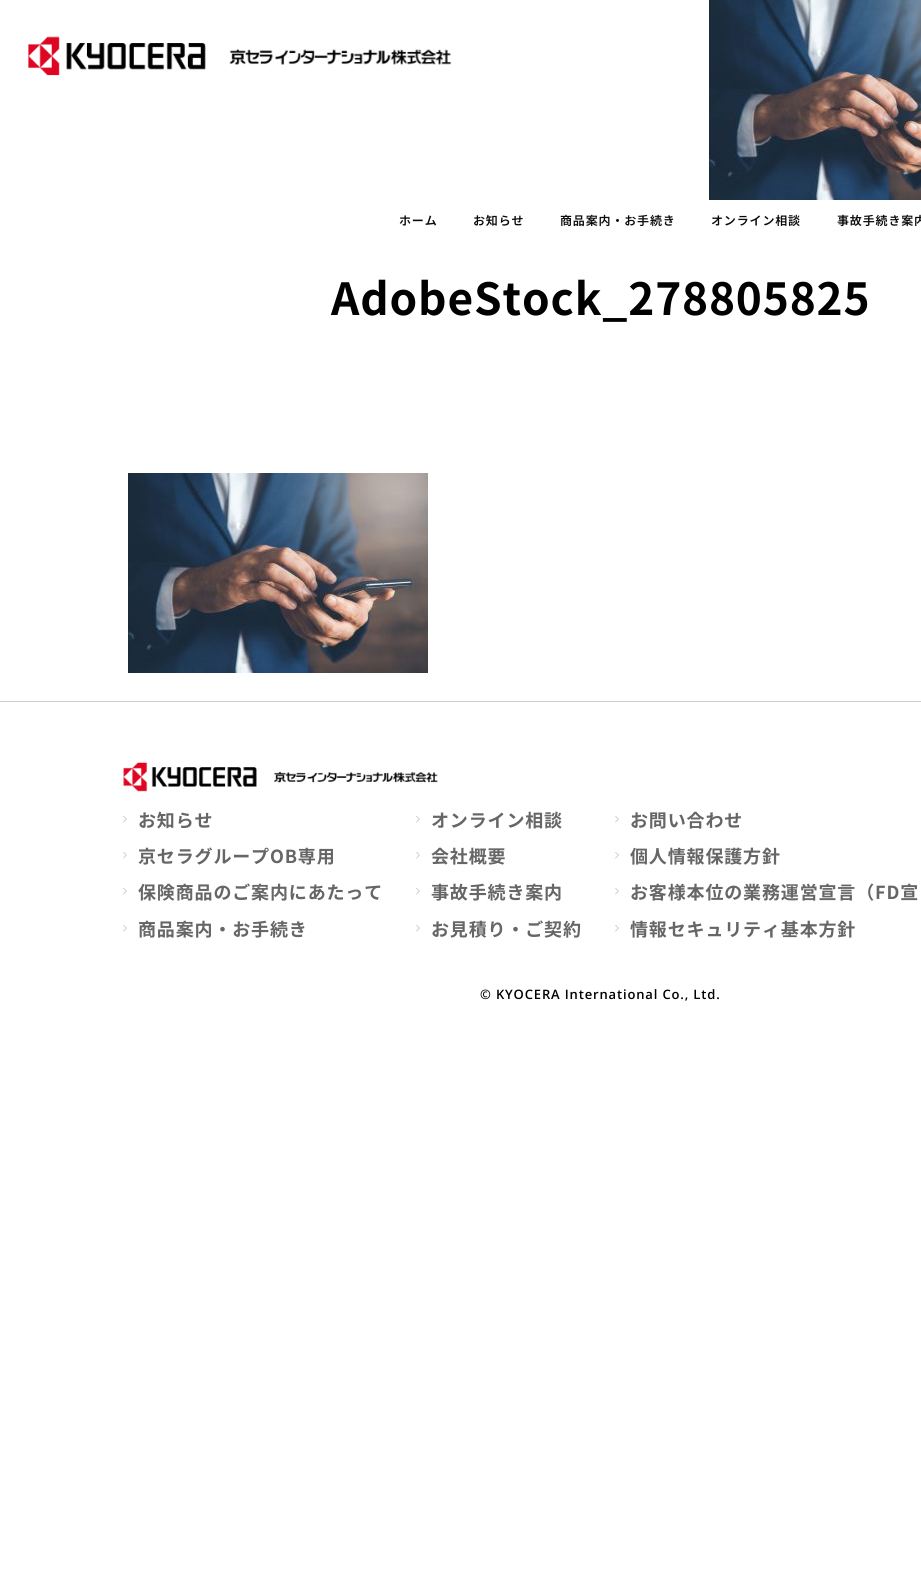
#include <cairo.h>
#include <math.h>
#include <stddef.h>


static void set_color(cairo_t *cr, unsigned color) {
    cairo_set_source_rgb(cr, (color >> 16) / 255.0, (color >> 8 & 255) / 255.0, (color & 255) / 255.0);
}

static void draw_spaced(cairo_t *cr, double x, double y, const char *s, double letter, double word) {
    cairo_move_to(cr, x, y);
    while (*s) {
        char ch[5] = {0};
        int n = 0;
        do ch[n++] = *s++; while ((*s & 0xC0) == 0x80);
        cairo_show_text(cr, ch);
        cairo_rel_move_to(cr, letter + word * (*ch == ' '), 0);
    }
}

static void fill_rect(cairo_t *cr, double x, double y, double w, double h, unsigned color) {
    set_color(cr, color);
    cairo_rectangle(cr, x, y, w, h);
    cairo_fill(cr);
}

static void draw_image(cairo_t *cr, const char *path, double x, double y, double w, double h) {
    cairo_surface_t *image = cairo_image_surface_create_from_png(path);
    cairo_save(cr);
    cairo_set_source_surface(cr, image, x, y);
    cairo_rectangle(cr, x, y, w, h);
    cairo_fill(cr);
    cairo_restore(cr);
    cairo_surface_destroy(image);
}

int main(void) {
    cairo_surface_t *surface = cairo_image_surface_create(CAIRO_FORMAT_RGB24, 921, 1581);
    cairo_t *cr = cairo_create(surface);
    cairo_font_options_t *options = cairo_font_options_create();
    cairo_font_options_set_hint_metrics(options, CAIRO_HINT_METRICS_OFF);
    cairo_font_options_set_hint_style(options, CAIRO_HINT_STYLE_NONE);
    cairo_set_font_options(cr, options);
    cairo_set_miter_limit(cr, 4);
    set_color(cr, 0xFFFFFF);
    cairo_paint(cr);
    draw_image(cr, "assets/img1.png", 28, 36, 424, 40);
    draw_image(cr, "assets/img2.png", 709, 0, 212, 200);
    cairo_select_font_face(cr, "Noto Sans JP SemiBold", CAIRO_FONT_SLANT_NORMAL, CAIRO_FONT_WEIGHT_NORMAL);
    cairo_set_font_size(cr, 12);
    set_color(cr, 0x0A0A0A);
    draw_spaced(cr, 399, 225, "ホーム", 0.85, 0);
    draw_spaced(cr, 473, 225, "お知らせ", 0.85, 0);
    draw_spaced(cr, 560, 225, "商品案内・お手続き", 0.85, 0);
    draw_spaced(cr, 711, 225, "オンライン相談", 0.85, 0);
    draw_spaced(cr, 837, 225, "事故手続き案内", 0.85, 0);
    cairo_select_font_face(cr, "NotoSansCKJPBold", CAIRO_FONT_SLANT_NORMAL, CAIRO_FONT_WEIGHT_BOLD);
    cairo_set_font_size(cr, 44.25);
    set_color(cr, 0x000000);
    draw_spaced(cr, 331, 315, "AdobeStock_278805825", 0.85, 0);
    draw_image(cr, "assets/img3.png", 128, 473, 300, 200);
    fill_rect(cr, 0, 701, 921, 1, 0xCCCCCC);
    draw_image(cr, "assets/img4.png", 123, 762, 315, 30);
    draw_image(cr, "assets/img5.png", 123, 816, 4, 7);
    cairo_select_font_face(cr, "Noto Sans JP", CAIRO_FONT_SLANT_NORMAL, CAIRO_FONT_WEIGHT_BOLD);
    cairo_set_font_size(cr, 18);
    set_color(cr, 0x666666);
    draw_spaced(cr, 138, 827, "お知らせ", 0.85, 0);
    draw_image(cr, "assets/img5.png", 416, 816, 4, 7);
    draw_spaced(cr, 431, 827, "オンライン相談", 0.85, 0);
    draw_image(cr, "assets/img5.png", 615, 816, 4, 7);
    draw_spaced(cr, 630, 827, "お問い合わせ", 0.85, 0);
    draw_image(cr, "assets/img5.png", 123, 852, 4, 7);
    draw_spaced(cr, 138, 863, "京セラグループOB専用", 0.85, 0);
    draw_image(cr, "assets/img5.png", 416, 852, 4, 7);
    draw_spaced(cr, 431, 863, "会社概要", 0.85, 0);
    draw_image(cr, "assets/img5.png", 615, 852, 4, 7);
    draw_spaced(cr, 630, 863, "個人情報保護方針", 0.85, 0);
    draw_image(cr, "assets/img5.png", 123, 888, 4, 7);
    draw_spaced(cr, 138, 899, "保険商品のご案内にあたって", 0.85, 0);
    draw_image(cr, "assets/img5.png", 416, 888, 4, 7);
    draw_spaced(cr, 431, 899, "事故手続き案内", 0.85, 0);
    draw_image(cr, "assets/img5.png", 615, 888, 4, 7);
    draw_spaced(cr, 630, 899, "お客様本位の業務運営宣言（FD宣", 0.85, 0);
    draw_image(cr, "assets/img5.png", 123, 925, 4, 7);
    draw_spaced(cr, 138, 936, "商品案内・お手続き", 0.85, 0);
    draw_image(cr, "assets/img5.png", 416, 925, 4, 7);
    draw_spaced(cr, 431, 936, "お見積り・ご契約", 0.85, 0);
    draw_image(cr, "assets/img5.png", 615, 925, 4, 7);
    draw_spaced(cr, 630, 936, "情報セキュリティ基本方針", 0.85, 0);
    cairo_select_font_face(cr, "Open Sans SemiBold", CAIRO_FONT_SLANT_NORMAL, CAIRO_FONT_WEIGHT_NORMAL);
    cairo_set_font_size(cr, 13);
    set_color(cr, 0x000000);
    draw_spaced(cr, 480, 999, "© KYOCERA International Co., Ltd.", 0.85, 0);
    cairo_surface_write_to_png(surface, "output.png");
    cairo_font_options_destroy(options);
    cairo_destroy(cr);
    cairo_surface_destroy(surface);
    return 0;
}
